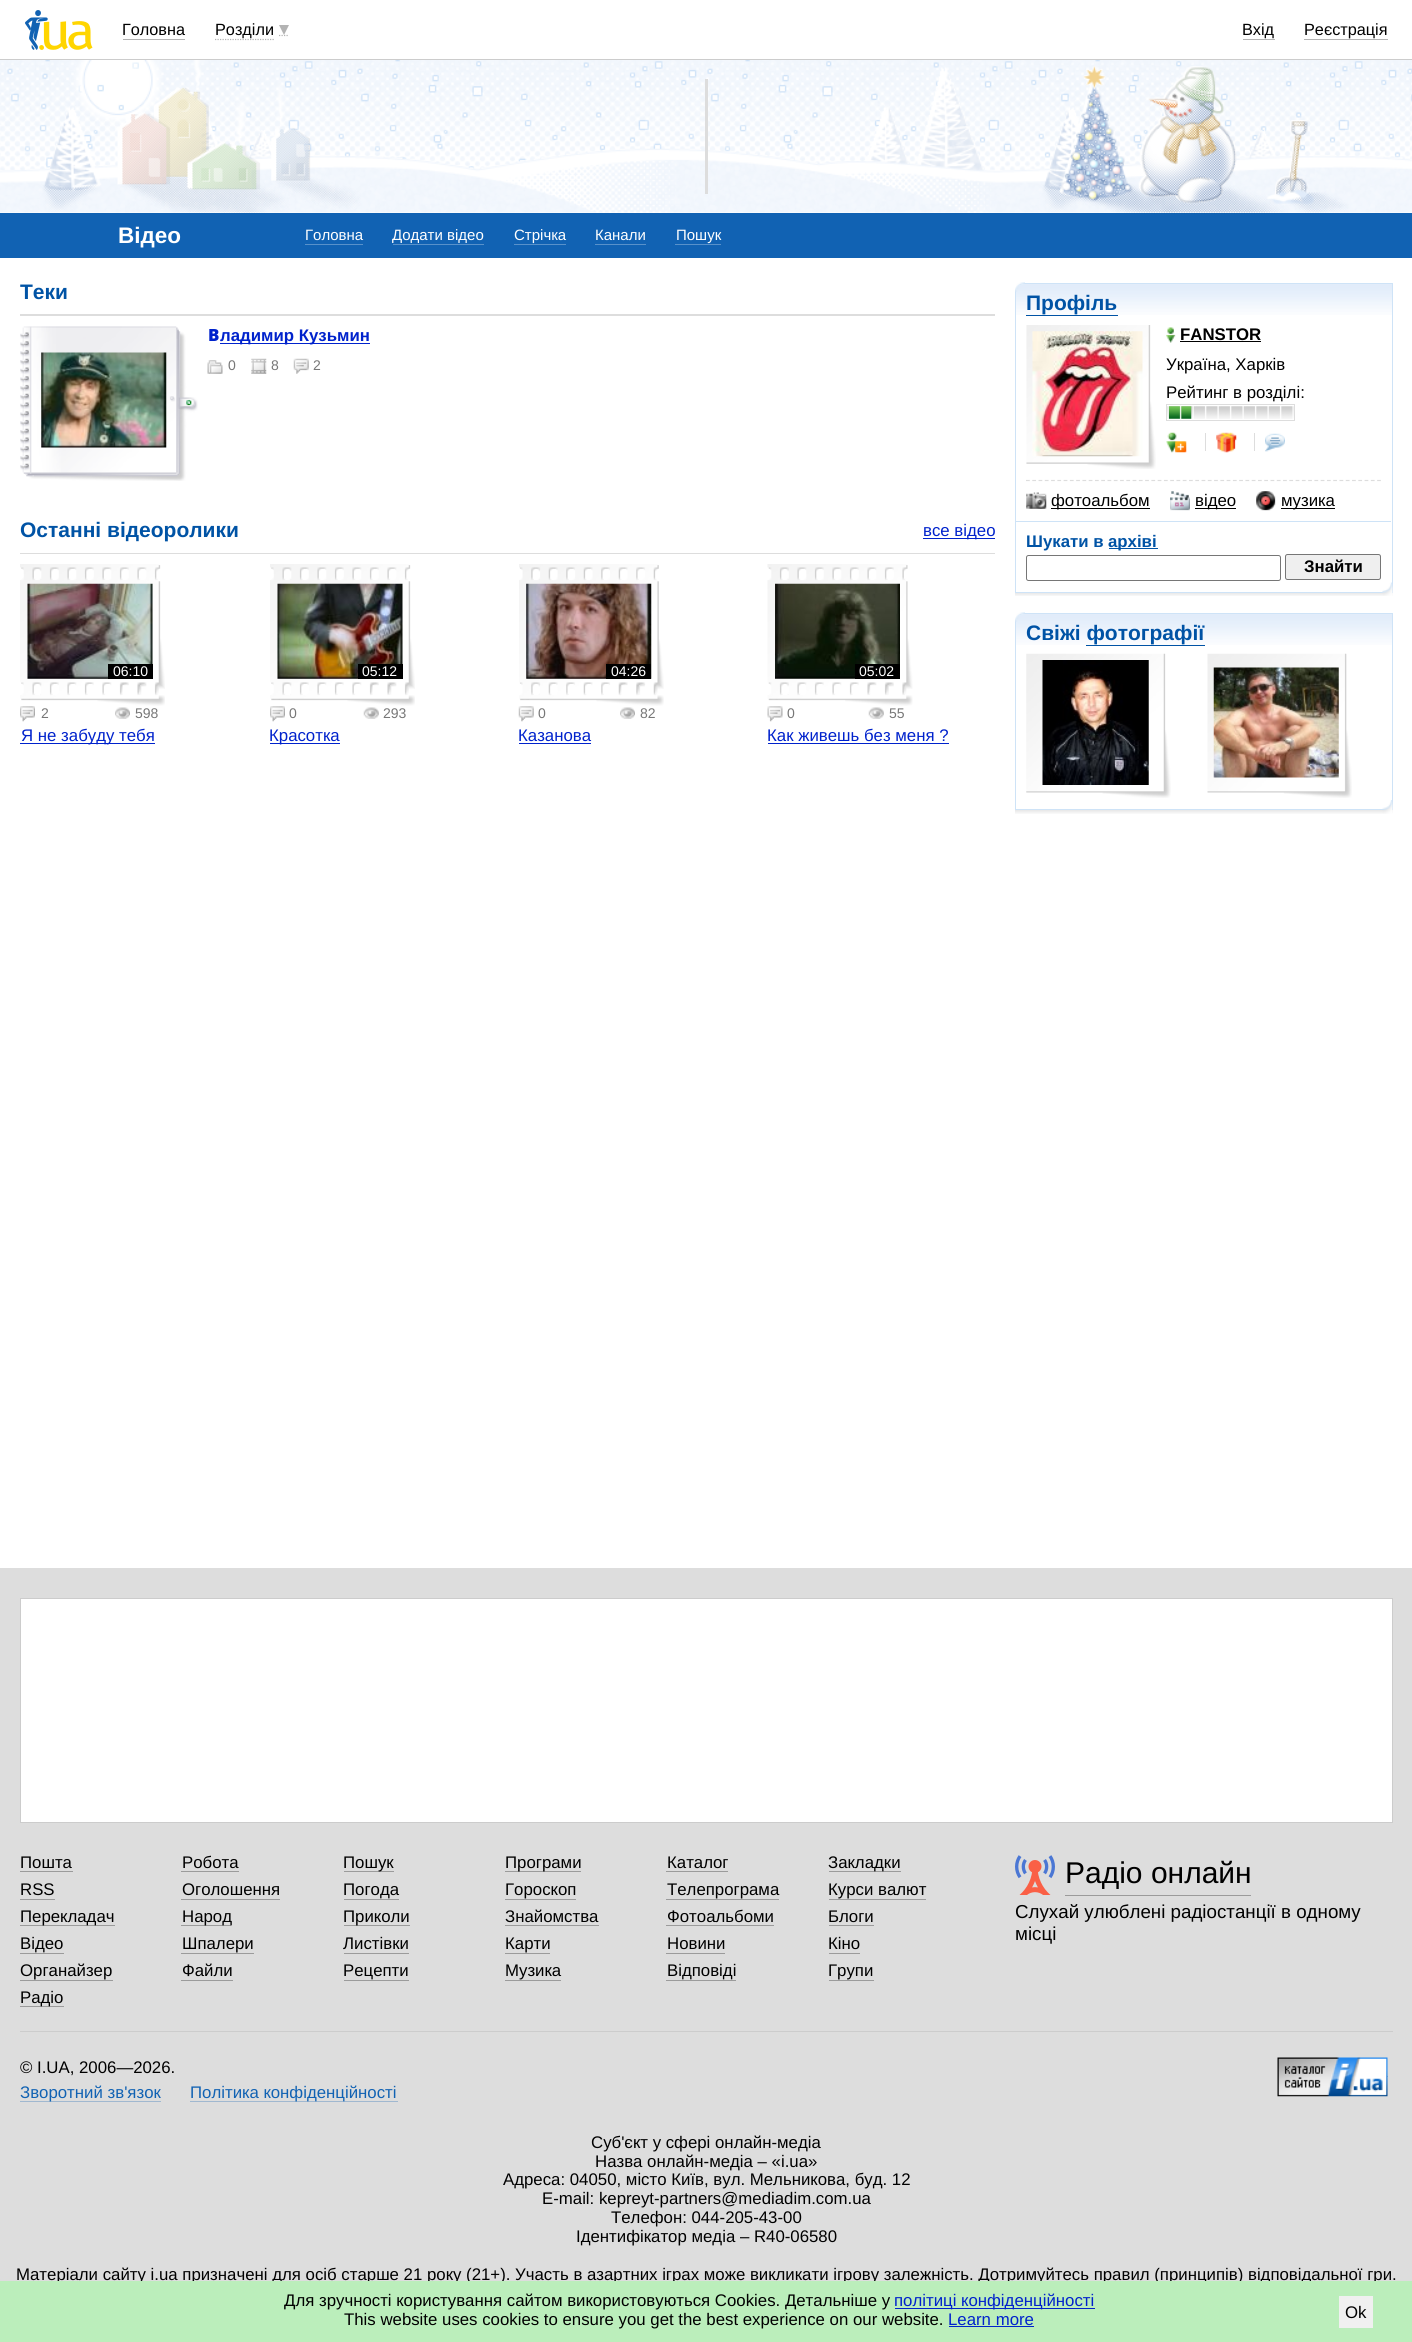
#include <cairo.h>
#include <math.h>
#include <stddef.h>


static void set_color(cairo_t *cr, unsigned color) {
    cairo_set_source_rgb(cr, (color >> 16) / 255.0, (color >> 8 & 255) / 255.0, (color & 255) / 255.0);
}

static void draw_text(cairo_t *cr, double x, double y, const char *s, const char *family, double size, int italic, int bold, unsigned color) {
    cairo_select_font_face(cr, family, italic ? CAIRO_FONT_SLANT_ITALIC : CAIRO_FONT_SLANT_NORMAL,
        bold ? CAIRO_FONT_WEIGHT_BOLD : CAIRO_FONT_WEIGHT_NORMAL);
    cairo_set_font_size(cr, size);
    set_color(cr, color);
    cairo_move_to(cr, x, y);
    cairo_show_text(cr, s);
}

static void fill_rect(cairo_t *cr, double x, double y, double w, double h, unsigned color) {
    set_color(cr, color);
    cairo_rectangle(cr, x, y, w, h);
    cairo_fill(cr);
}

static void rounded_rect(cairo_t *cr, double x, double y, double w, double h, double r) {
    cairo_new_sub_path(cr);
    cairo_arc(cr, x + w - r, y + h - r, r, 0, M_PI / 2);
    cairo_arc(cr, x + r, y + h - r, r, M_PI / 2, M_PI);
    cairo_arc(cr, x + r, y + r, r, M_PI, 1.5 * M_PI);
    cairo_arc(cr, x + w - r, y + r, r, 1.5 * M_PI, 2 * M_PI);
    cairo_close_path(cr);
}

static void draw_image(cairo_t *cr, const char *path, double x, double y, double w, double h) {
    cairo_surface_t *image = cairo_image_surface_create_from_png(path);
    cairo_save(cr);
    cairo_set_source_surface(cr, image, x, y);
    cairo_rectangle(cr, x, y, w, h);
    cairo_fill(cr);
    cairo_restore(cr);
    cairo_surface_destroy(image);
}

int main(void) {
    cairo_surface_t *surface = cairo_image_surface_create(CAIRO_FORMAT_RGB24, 1412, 2342);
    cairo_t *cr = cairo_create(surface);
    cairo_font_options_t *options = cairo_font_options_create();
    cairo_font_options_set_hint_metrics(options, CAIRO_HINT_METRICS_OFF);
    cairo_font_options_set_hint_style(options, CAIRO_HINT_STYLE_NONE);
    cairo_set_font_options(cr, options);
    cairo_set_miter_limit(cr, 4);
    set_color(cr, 0xFFFFFF);
    cairo_paint(cr);
    fill_rect(cr, 0, 59, 1412, 1, 0xCCCCCC);
    draw_image(cr, "assets/img1.png", 25, 10, 68, 40);
    draw_text(cr, 122, 35, "Головна", "Liberation Sans", 16.25, 0, 0, 0x000000);
    fill_rect(cr, 123, 39, 62, 1, 0xB3B3B3);
    cairo_new_path(cr);
    cairo_move_to(cr, 215, 39.5);
    cairo_line_to(cr, 274, 39.5);
    cairo_set_line_width(cr, 1.2);
    cairo_set_dash(cr, (double[]){1.25, 1.25}, 2, 0);
    cairo_stroke(cr);
    cairo_new_path(cr);
    cairo_move_to(cr, 279, 35.5);
    cairo_line_to(cr, 289, 35.5);
    cairo_stroke(cr);
    draw_text(cr, 215, 35, "Розділи", "Liberation Sans", 16.25, 0, 0, 0x000000);
    set_color(cr, 0xB3B3B3);
    cairo_new_path(cr);
    cairo_move_to(cr, 279, 25);
    cairo_line_to(cr, 289, 25);
    cairo_line_to(cr, 284, 35);
    cairo_close_path(cr);
    cairo_fill(cr);
    draw_text(cr, 1242, 35, "Вхід", "Liberation Sans", 16.25, 0, 0, 0x000000);
    fill_rect(cr, 1243, 39, 32, 1, 0xB3B3B3);
    draw_text(cr, 1304, 35, "Реєстрація", "Liberation Sans", 16.25, 0, 0, 0x000000);
    fill_rect(cr, 1304, 39, 84, 1, 0xB3B3B3);
    draw_image(cr, "assets/img2.png", 0, 60, 1412, 153);
    fill_rect(cr, 705, 79, 3, 115, 0xDDDDDD);
    fill_rect(cr, 0, 213, 1412, 45, 0x1162B3);
    draw_text(cr, 118, 243, "Відео", "Liberation Sans", 22.5, 0, 1, 0xFFFFFF);
    draw_text(cr, 305, 240, "Головна", "Liberation Sans", 15, 0, 0, 0xFFFFFF);
    fill_rect(cr, 305, 244, 58, 1, 0x5891CA);
    draw_text(cr, 392, 240, "Додати відео", "Liberation Sans", 15, 0, 0, 0xFFFFFF);
    fill_rect(cr, 393, 244, 91, 1, 0x5891CA);
    draw_text(cr, 514, 240, "Стрічка", "Liberation Sans", 15, 0, 0, 0xFFFFFF);
    fill_rect(cr, 514, 244, 52, 1, 0x5891CA);
    draw_text(cr, 595, 240, "Канали", "Liberation Sans", 15, 0, 0, 0xFFFFFF);
    fill_rect(cr, 595, 244, 51, 1, 0x5891CA);
    draw_text(cr, 676, 240, "Пошук", "Liberation Sans", 15, 0, 0, 0xFFFFFF);
    fill_rect(cr, 675, 244, 46, 1, 0x5891CA);
    fill_rect(cr, 20, 314, 975, 2, 0xDDDDDD);
    draw_text(cr, 20, 299, "Теки", "Liberation Sans", 21, 0, 1, 0x0053A5);
    draw_image(cr, "assets/img3.png", 20, 326, 178, 155);
    draw_image(cr, "assets/img4.png", 41, 352, 126, 96);
    draw_text(cr, 208, 341, "В", "Noto Sans Black", 16.8, 0, 0, 0x0022CC);
    fill_rect(cr, 220, 343, 150, 1, 0x0022CC);
    draw_text(cr, 220, 341, "ладимир Кузьмин", "Liberation Sans", 16.8, 0, 1, 0x0022CC);
    draw_image(cr, "assets/img5.png", 207, 360, 16, 14);
    draw_text(cr, 228, 370, "0", "Liberation Sans", 14, 0, 0, 0x777777);
    draw_image(cr, "assets/img6.png", 251, 358, 16, 16);
    draw_text(cr, 271, 370, "8", "Liberation Sans", 14, 0, 0, 0x777777);
    draw_image(cr, "assets/img7.png", 293, 358, 16, 16);
    draw_text(cr, 313, 370, "2", "Liberation Sans", 14, 0, 0, 0x777777);
    fill_rect(cr, 20, 553, 975, 1, 0xDDDDDD);
    draw_text(cr, 20, 537, "Останні відеоролики", "Liberation Sans", 21, 0, 1, 0x0053A5);
    fill_rect(cr, 923, 538, 72, 1, 0x0022CC);
    draw_text(cr, 923, 536, "все відео", "Liberation Sans", 16.8, 0, 0, 0x0022CC);
    draw_image(cr, "assets/img8.png", 20, 564, 145, 142);
    draw_image(cr, "assets/img9.png", 27, 583, 126, 96);
    fill_rect(cr, 108, 664, 45, 15, 0x000000);
    draw_text(cr, 113, 676, "06:10", "Liberation Sans", 14, 0, 0, 0xFFFFFF);
    draw_image(cr, "assets/img10.png", 20, 706, 15, 16);
    draw_text(cr, 41, 718, "2", "Liberation Sans", 14, 0, 0, 0x777777);
    draw_image(cr, "assets/img11.png", 115, 707, 15, 12);
    draw_text(cr, 135, 718, "598", "Liberation Sans", 14, 0, 0, 0x777777);
    fill_rect(cr, 20, 743, 135, 1, 0x0022CC);
    draw_text(cr, 21, 741, "Я не забуду тебя", "Liberation Sans", 16.8, 0, 0, 0x0022CC);
    draw_image(cr, "assets/img8.png", 270, 564, 145, 142);
    draw_image(cr, "assets/img12.png", 277, 583, 126, 96);
    fill_rect(cr, 358, 664, 45, 15, 0x000000);
    draw_text(cr, 362, 676, "05:12", "Liberation Sans", 14, 0, 0, 0xFFFFFF);
    draw_image(cr, "assets/img10.png", 270, 706, 15, 16);
    draw_text(cr, 289, 718, "0", "Liberation Sans", 14, 0, 0, 0x777777);
    draw_image(cr, "assets/img13.png", 363, 707, 16, 12);
    draw_text(cr, 383, 718, "293", "Liberation Sans", 14, 0, 0, 0x777777);
    fill_rect(cr, 270, 743, 70, 1, 0x0022CC);
    draw_text(cr, 269, 741, "Красотка", "Liberation Sans", 16.8, 0, 0, 0x0022CC);
    draw_image(cr, "assets/img14.png", 519, 564, 145, 142);
    draw_image(cr, "assets/img15.png", 526, 583, 126, 96);
    fill_rect(cr, 606, 664, 45, 15, 0x000000);
    draw_text(cr, 611, 676, "04:26", "Liberation Sans", 14, 0, 0, 0xFFFFFF);
    draw_image(cr, "assets/img16.png", 518, 706, 16, 16);
    draw_text(cr, 538, 718, "0", "Liberation Sans", 14, 0, 0, 0x777777);
    draw_image(cr, "assets/img11.png", 620, 707, 15, 12);
    draw_text(cr, 640, 718, "82", "Liberation Sans", 14, 0, 0, 0x777777);
    draw_text(cr, 518, 741, "Казанова", "Liberation Sans", 16.8, 0, 0, 0x0022CC);
    fill_rect(cr, 519, 743, 72, 1, 0x0022CC);
    draw_image(cr, "assets/img17.png", 767, 564, 146, 142);
    draw_image(cr, "assets/img18.png", 775, 583, 125, 96);
    fill_rect(cr, 855, 664, 45, 15, 0x000000);
    draw_text(cr, 859, 676, "05:02", "Liberation Sans", 14, 0, 0, 0xFFFFFF);
    draw_image(cr, "assets/img19.png", 767, 706, 16, 16);
    draw_text(cr, 787, 718, "0", "Liberation Sans", 14, 0, 0, 0x777777);
    draw_image(cr, "assets/img13.png", 868, 707, 16, 12);
    draw_text(cr, 889, 718, "55", "Liberation Sans", 14, 0, 0, 0x777777);
    draw_text(cr, 767, 741, "Как живешь без меня ?", "Liberation Sans", 16.8, 0, 0, 0x0022CC);
    fill_rect(cr, 768, 743, 181, 1, 0x0022CC);
    draw_image(cr, "assets/img20.png", 1015, 593, 378, 3);
    draw_image(cr, "assets/img22.png", 1016, 284, 376, 31);
    cairo_rectangle(cr, 1015.5, 283.5, 377, 309);
    set_color(cr, 0xCEE3F7);
    cairo_set_line_width(cr, 1);
    cairo_set_dash(cr, NULL, 0, 0);
    cairo_stroke(cr);
    draw_image(cr, "assets/img21.png", 1015, 282, 10, 10);
    draw_text(cr, 1026, 310, "Профіль", "Liberation Sans", 21, 0, 1, 0x0053A5);
    fill_rect(cr, 1026, 315, 92, 1, 0x0053A5);
    draw_image(cr, "assets/img23.png", 1026, 325, 130, 144);
    draw_image(cr, "assets/img24.png", 1032, 331, 111, 126);
    draw_image(cr, "assets/img25.png", 1166, 327, 10, 16);
    draw_text(cr, 1180, 340, "FANSTOR", "Liberation Sans", 16.8, 0, 1, 0x000000);
    fill_rect(cr, 1180, 341, 81, 1, 0x000000);
    draw_text(cr, 1166, 370, "Україна, Харків", "Liberation Sans", 16.8, 0, 0, 0x000000);
    draw_text(cr, 1166, 398, "Рейтинг в розділі:", "Liberation Sans", 16.8, 0, 0, 0x000000);
    draw_image(cr, "assets/img26.png", 1167, 406, 127, 13);
    cairo_rectangle(cr, 1166.5, 404.5, 128, 16);
    set_color(cr, 0xDDDDDD);
    cairo_stroke(cr);
    draw_image(cr, "assets/img27.png", 1168, 406, 24, 13);
    draw_image(cr, "assets/img28.png", 1166, 432, 21, 21);
    fill_rect(cr, 1205, 433, 1, 18, 0xDDDDDD);
    draw_image(cr, "assets/img29.png", 1216, 432, 21, 21);
    fill_rect(cr, 1254, 433, 1, 18, 0xDDDDDD);
    draw_image(cr, "assets/img30.png", 1265, 433, 20, 19);
    cairo_new_path(cr);
    cairo_move_to(cr, 1026, 480.5);
    cairo_line_to(cr, 1381, 480.5);
    cairo_set_line_width(cr, 1.2);
    cairo_set_dash(cr, (double[]){3.75, 2.52}, 2, 0);
    cairo_stroke(cr);
    draw_image(cr, "assets/img31.png", 1026, 492, 21, 17);
    fill_rect(cr, 1051, 508, 99, 1, 0x000000);
    draw_text(cr, 1051, 506, "фотоальбом", "Liberation Sans", 16.8, 0, 0, 0x000000);
    draw_image(cr, "assets/img32.png", 1170, 491, 20, 20);
    fill_rect(cr, 1195, 508, 41, 1, 0x000000);
    draw_text(cr, 1195, 506, "відео", "Liberation Sans", 16.8, 0, 0, 0x000000);
    draw_image(cr, "assets/img33.png", 1256, 491, 20, 20);
    fill_rect(cr, 1281, 508, 54, 1, 0x000000);
    draw_text(cr, 1281, 506, "музика", "Liberation Sans", 16.8, 0, 0, 0x000000);
    fill_rect(cr, 1016, 521, 375, 1, 0xCEE3F7);
    draw_text(cr, 1026, 547, "Шукати в", "Liberation Sans", 16.8, 0, 1, 0x0053A5);
    fill_rect(cr, 1109, 548, 49, 1, 0x0053A5);
    draw_text(cr, 1108, 547, "архіві", "Liberation Sans", 16.8, 0, 1, 0x0053A5);
    rounded_rect(cr, 1026.5, 555.5, 254, 25, 2);
    set_color(cr, 0x767676);
    cairo_set_line_width(cr, 1);
    cairo_set_dash(cr, NULL, 0, 0);
    cairo_stroke(cr);
    set_color(cr, 0xEFEFEF);
    rounded_rect(cr, 1285.5, 554.5, 95, 25, 2);
    cairo_fill_preserve(cr);
    set_color(cr, 0x767676);
    cairo_stroke(cr);
    draw_text(cr, 1304, 572, "Знайти", "Liberation Sans", 16.8, 0, 1, 0x000000);
    draw_image(cr, "assets/img34.png", 1382, 582, 11, 14);
    draw_image(cr, "assets/img35.png", 1015, 810, 378, 4);
    draw_image(cr, "assets/img36.png", 1016, 614, 376, 31);
    cairo_rectangle(cr, 1015.5, 613.5, 377, 196);
    set_color(cr, 0xCEE3F7);
    cairo_stroke(cr);
    draw_image(cr, "assets/img21.png", 1015, 612, 10, 10);
    draw_text(cr, 1026, 640, "Свіжі фотографії", "Liberation Sans", 21, 0, 1, 0x0053A5);
    fill_rect(cr, 1086, 645, 119, 1, 0x0053A5);
    draw_image(cr, "assets/img37.png", 1026, 653, 145, 145);
    draw_image(cr, "assets/img38.png", 1042, 660, 107, 125);
    draw_image(cr, "assets/img39.png", 1207, 653, 145, 145);
    draw_image(cr, "assets/img40.png", 1213, 667, 126, 111);
    draw_image(cr, "assets/img41.png", 1382, 800, 11, 14);
    fill_rect(cr, 0, 1568, 1412, 713, 0xDDDDDD);
    set_color(cr, 0xFFFFFF);
    cairo_rectangle(cr, 20.5, 1598.5, 1372, 224);
    cairo_fill_preserve(cr);
    set_color(cr, 0xCCCCCC);
    cairo_stroke(cr);
    draw_text(cr, 20, 1868, "Пошта", "Liberation Sans", 16.8, 0, 0, 0x000000);
    fill_rect(cr, 20, 1871, 53, 1, 0x9B9B9B);
    draw_text(cr, 182, 1868, "Робота", "Liberation Sans", 16.8, 0, 0, 0x000000);
    fill_rect(cr, 181, 1871, 58, 1, 0x9B9B9B);
    fill_rect(cr, 344, 1871, 50, 1, 0x9B9B9B);
    draw_text(cr, 343, 1868, "Пошук", "Liberation Sans", 16.8, 0, 0, 0x000000);
    fill_rect(cr, 505, 1871, 76, 1, 0x9B9B9B);
    draw_text(cr, 505, 1868, "Програми", "Liberation Sans", 16.8, 0, 0, 0x000000);
    draw_text(cr, 667, 1868, "Каталог", "Liberation Sans", 16.8, 0, 0, 0x000000);
    fill_rect(cr, 666, 1871, 62, 1, 0x9B9B9B);
    fill_rect(cr, 829, 1871, 72, 1, 0x9B9B9B);
    draw_text(cr, 828, 1868, "Закладки", "Liberation Sans", 16.8, 0, 0, 0x000000);
    draw_text(cr, 20, 1895, "RSS", "Liberation Sans", 16.8, 0, 0, 0x000000);
    fill_rect(cr, 20, 1899, 35, 1, 0x9B9B9B);
    draw_text(cr, 182, 1895, "Оголошення", "Liberation Sans", 16.8, 0, 0, 0x000000);
    fill_rect(cr, 181, 1899, 99, 1, 0x9B9B9B);
    draw_text(cr, 343, 1895, "Погода", "Liberation Sans", 16.8, 0, 0, 0x000000);
    fill_rect(cr, 344, 1899, 55, 1, 0x9B9B9B);
    draw_text(cr, 505, 1895, "Гороскоп", "Liberation Sans", 16.8, 0, 0, 0x000000);
    fill_rect(cr, 505, 1899, 71, 1, 0x9B9B9B);
    draw_text(cr, 667, 1895, "Телепрограма", "Liberation Sans", 16.8, 0, 0, 0x000000);
    fill_rect(cr, 666, 1899, 113, 1, 0x9B9B9B);
    draw_text(cr, 828, 1895, "Курси валют", "Liberation Sans", 16.8, 0, 0, 0x000000);
    fill_rect(cr, 829, 1899, 97, 1, 0x9B9B9B);
    fill_rect(cr, 20, 1925, 95, 1, 0x9B9B9B);
    draw_text(cr, 20, 1922, "Перекладач", "Liberation Sans", 16.8, 0, 0, 0x000000);
    fill_rect(cr, 181, 1925, 50, 1, 0x9B9B9B);
    draw_text(cr, 182, 1922, "Народ", "Liberation Sans", 16.8, 0, 0, 0x000000);
    fill_rect(cr, 344, 1925, 66, 1, 0x9B9B9B);
    draw_text(cr, 343, 1922, "Приколи", "Liberation Sans", 16.8, 0, 0, 0x000000);
    draw_text(cr, 505, 1922, "Знайомства", "Liberation Sans", 16.8, 0, 0, 0x000000);
    fill_rect(cr, 505, 1925, 94, 1, 0x9B9B9B);
    draw_text(cr, 667, 1922, "Фотоальбоми", "Liberation Sans", 16.8, 0, 0, 0x000000);
    fill_rect(cr, 666, 1925, 108, 1, 0x9B9B9B);
    draw_text(cr, 828, 1922, "Блоги", "Liberation Sans", 16.8, 0, 0, 0x000000);
    fill_rect(cr, 829, 1925, 45, 1, 0x9B9B9B);
    draw_text(cr, 20, 1949, "Відео", "Liberation Sans", 16.8, 0, 0, 0x000000);
    fill_rect(cr, 20, 1953, 44, 1, 0x9B9B9B);
    draw_text(cr, 182, 1949, "Шпалери", "Liberation Sans", 16.8, 0, 0, 0x000000);
    fill_rect(cr, 181, 1953, 73, 1, 0x9B9B9B);
    draw_text(cr, 343, 1949, "Листівки", "Liberation Sans", 16.8, 0, 0, 0x000000);
    fill_rect(cr, 344, 1953, 65, 1, 0x9B9B9B);
    draw_text(cr, 505, 1949, "Карти", "Liberation Sans", 16.8, 0, 0, 0x000000);
    fill_rect(cr, 505, 1953, 45, 1, 0x9B9B9B);
    draw_text(cr, 667, 1949, "Новини", "Liberation Sans", 16.8, 0, 0, 0x000000);
    fill_rect(cr, 666, 1953, 59, 1, 0x9B9B9B);
    draw_text(cr, 828, 1949, "Кіно", "Liberation Sans", 16.8, 0, 0, 0x000000);
    fill_rect(cr, 829, 1953, 31, 1, 0x9B9B9B);
    draw_text(cr, 20, 1976, "Органайзер", "Liberation Sans", 16.8, 0, 0, 0x000000);
    fill_rect(cr, 20, 1980, 93, 1, 0x9B9B9B);
    draw_text(cr, 182, 1976, "Файли", "Liberation Sans", 16.8, 0, 0, 0x000000);
    fill_rect(cr, 181, 1980, 52, 1, 0x9B9B9B);
    draw_text(cr, 343, 1976, "Рецепти", "Liberation Sans", 16.8, 0, 0, 0x000000);
    fill_rect(cr, 344, 1980, 65, 1, 0x9B9B9B);
    draw_text(cr, 505, 1976, "Музика", "Liberation Sans", 16.8, 0, 0, 0x000000);
    fill_rect(cr, 505, 1980, 56, 1, 0x9B9B9B);
    draw_text(cr, 667, 1976, "Відповіді", "Liberation Sans", 16.8, 0, 0, 0x000000);
    fill_rect(cr, 666, 1980, 70, 1, 0x9B9B9B);
    draw_text(cr, 828, 1976, "Групи", "Liberation Sans", 16.8, 0, 0, 0x000000);
    fill_rect(cr, 829, 1980, 45, 1, 0x9B9B9B);
    fill_rect(cr, 20, 2006, 44, 1, 0x9B9B9B);
    draw_text(cr, 20, 2003, "Радіо", "Liberation Sans", 16.8, 0, 0, 0x000000);
    fill_rect(cr, 1065, 1895, 186, 1, 0x9B9B9B);
    draw_image(cr, "assets/img42.png", 1015, 1855, 40, 40);
    draw_text(cr, 1065, 1883, "Радіо онлайн", "Liberation Sans", 30, 0, 0, 0x000000);
    draw_text(cr, 1015, 1918, "Слухай улюблені радіостанції в одному", "Liberation Sans", 18.75, 0, 0, 0x000000);
    draw_text(cr, 1015, 1940, "місці", "Liberation Sans", 18.75, 0, 0, 0x000000);
    fill_rect(cr, 20, 2031, 1373, 1, 0xCCCCCC);
    draw_text(cr, 20, 2073, "©", "Liberation Sans", 16.8, 0, 0, 0x000000);
    draw_text(cr, 37, 2073, "I.UA, 2006—2026.", "Liberation Sans", 16.8, 0, 0, 0x000000);
    fill_rect(cr, 1387, 2076, 1, 1, 0xA0B8D0);
    draw_image(cr, "assets/img43.png", 1277, 2057, 111, 40);
    fill_rect(cr, 20, 2101, 141, 1, 0xA0B8D0);
    draw_text(cr, 20, 2098, "Зворотний зв'язок", "Liberation Sans", 16.8, 0, 0, 0x1162B3);
    fill_rect(cr, 190, 2101, 208, 1, 0xA0B8D0);
    draw_text(cr, 190, 2098, "Політика конфіденційності", "Liberation Sans", 16.8, 0, 0, 0x1162B3);
    draw_text(cr, 591, 2148, "Суб'єкт у сфері онлайн-медіа", "Liberation Sans", 16.8, 0, 0, 0x000000);
    draw_text(cr, 595, 2167, "Назва онлайн-медіа – «i.ua»", "Liberation Sans", 16.8, 0, 0, 0x000000);
    draw_text(cr, 503, 2185, "Адреса: 04050, місто Київ, вул. Мельникова, буд. 12", "Liberation Sans", 16.8, 0, 0, 0x000000);
    draw_text(cr, 542, 2204, "E-mail: kepreyt-partners@mediadim.com.ua", "Liberation Sans", 16.8, 0, 0, 0x000000);
    draw_text(cr, 611, 2223, "Телефон: 044-205-43-00", "Liberation Sans", 16.8, 0, 0, 0x000000);
    draw_text(cr, 576, 2242, "Ідентифікатор медіа – R40-06580", "Liberation Sans", 16.8, 0, 0, 0x000000);
    draw_text(cr, 16, 2280, "Матеріали сайту i.ua призначені для осіб старше 21 року (21+). Участь в азартних іграх може викликати ігрову залежність. Дотримуйтесь правил (принципів) відповідальної гри.", "Liberation Sans", 16.8, 0, 0, 0x000000);
    fill_rect(cr, 0, 2281, 1412, 61, 0xBBEEBB);
    draw_text(cr, 284, 2306, "Для зручності користування сайтом використовуються Cookies. Детальніше у", "Liberation Sans", 16.8, 0, 0, 0x000000);
    fill_rect(cr, 895, 2308, 200, 1, 0x0022CC);
    draw_text(cr, 894, 2306, "політиці конфіденційності", "Liberation Sans", 16.8, 0, 0, 0x0022CC);
    draw_text(cr, 344, 2325, "This website uses cookies to ensure you get the best experience on our website.", "Liberation Sans", 16.8, 0, 0, 0x000000);
    draw_text(cr, 948, 2325, "Learn more", "Liberation Sans", 16.8, 0, 0, 0x0022CC);
    fill_rect(cr, 949, 2326, 85, 1, 0x0022CC);
    fill_rect(cr, 1339, 2296, 34, 32, 0xF0F0F0);
    draw_text(cr, 1345, 2318, "Ok", "Liberation Sans", 16.8, 0, 0, 0x000000);
    cairo_surface_write_to_png(surface, "output.png");
    cairo_font_options_destroy(options);
    cairo_destroy(cr);
    cairo_surface_destroy(surface);
    return 0;
}
